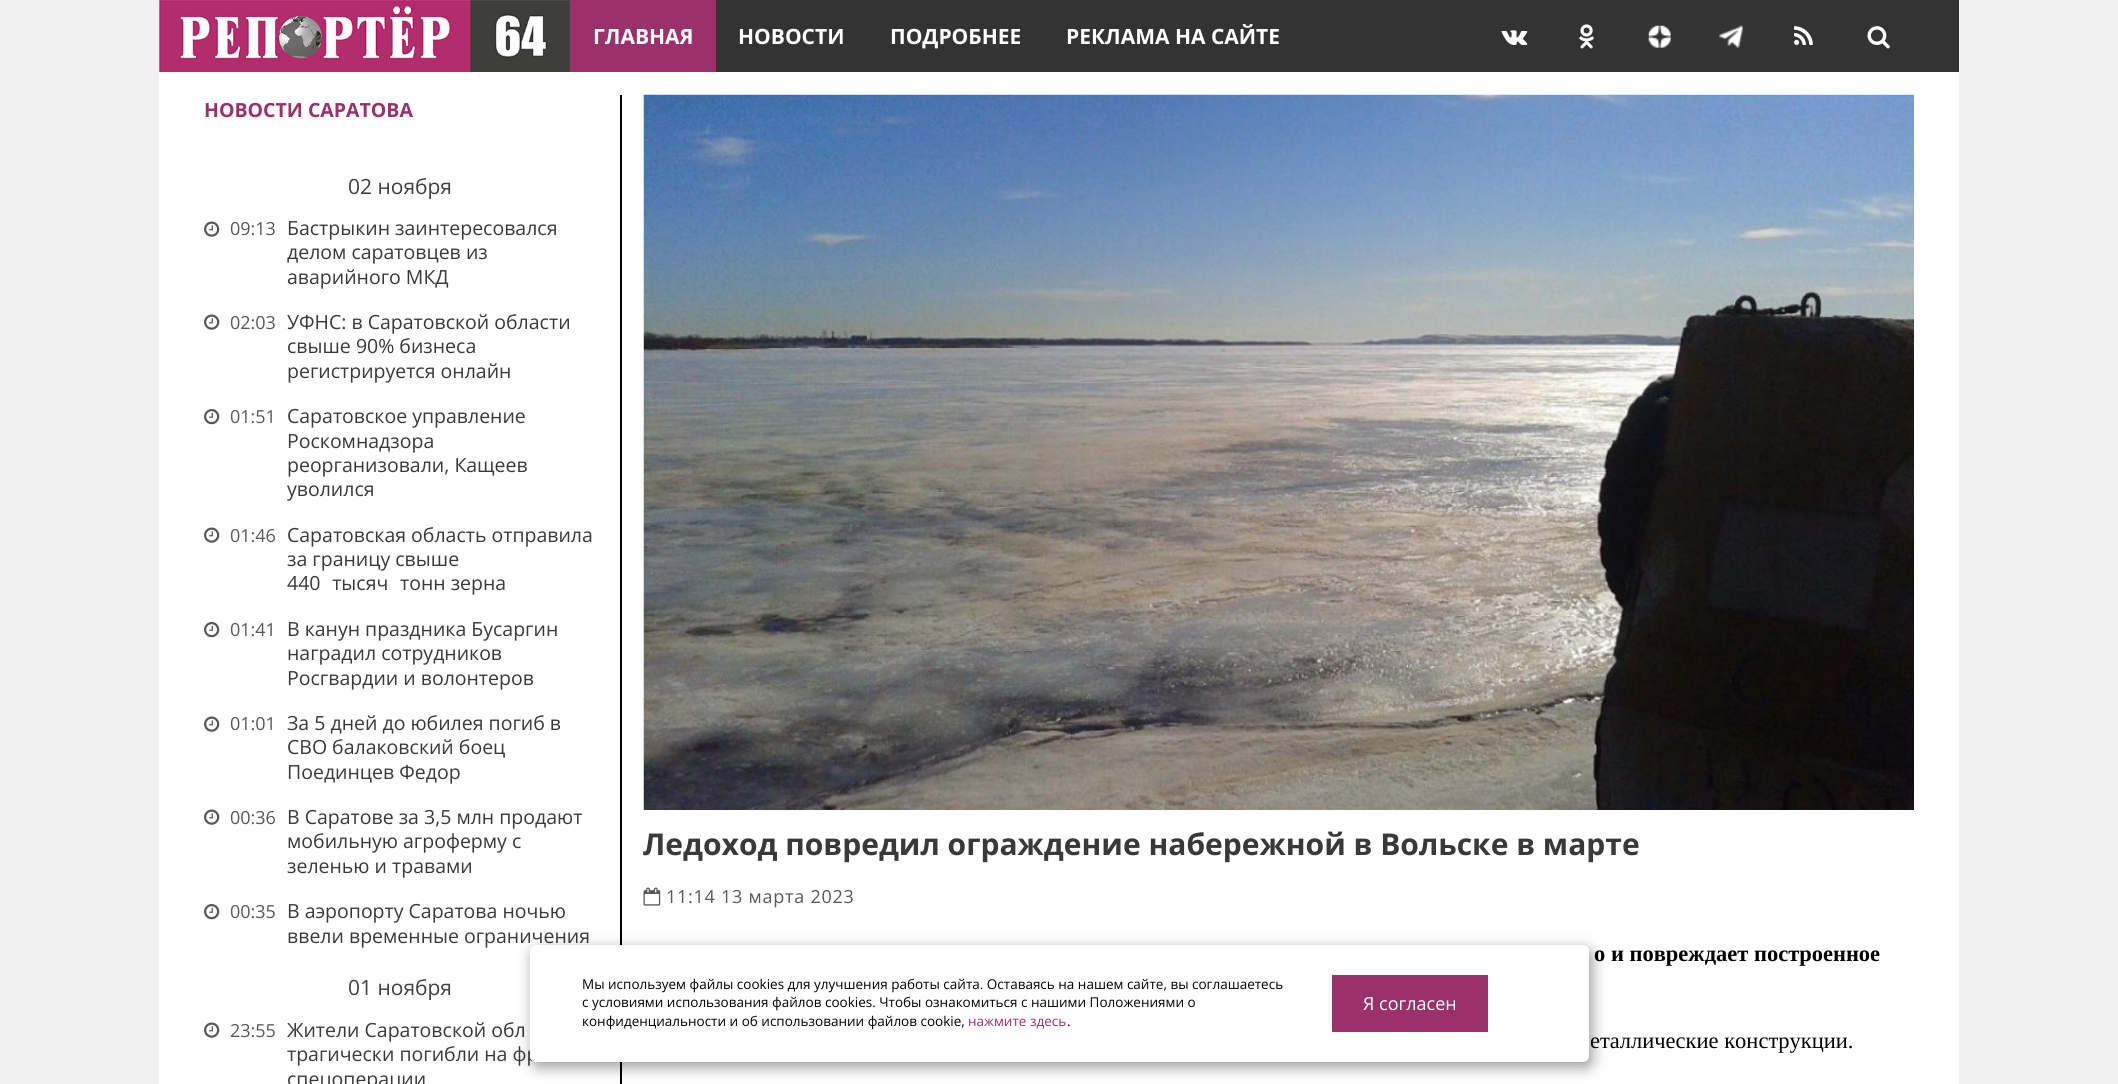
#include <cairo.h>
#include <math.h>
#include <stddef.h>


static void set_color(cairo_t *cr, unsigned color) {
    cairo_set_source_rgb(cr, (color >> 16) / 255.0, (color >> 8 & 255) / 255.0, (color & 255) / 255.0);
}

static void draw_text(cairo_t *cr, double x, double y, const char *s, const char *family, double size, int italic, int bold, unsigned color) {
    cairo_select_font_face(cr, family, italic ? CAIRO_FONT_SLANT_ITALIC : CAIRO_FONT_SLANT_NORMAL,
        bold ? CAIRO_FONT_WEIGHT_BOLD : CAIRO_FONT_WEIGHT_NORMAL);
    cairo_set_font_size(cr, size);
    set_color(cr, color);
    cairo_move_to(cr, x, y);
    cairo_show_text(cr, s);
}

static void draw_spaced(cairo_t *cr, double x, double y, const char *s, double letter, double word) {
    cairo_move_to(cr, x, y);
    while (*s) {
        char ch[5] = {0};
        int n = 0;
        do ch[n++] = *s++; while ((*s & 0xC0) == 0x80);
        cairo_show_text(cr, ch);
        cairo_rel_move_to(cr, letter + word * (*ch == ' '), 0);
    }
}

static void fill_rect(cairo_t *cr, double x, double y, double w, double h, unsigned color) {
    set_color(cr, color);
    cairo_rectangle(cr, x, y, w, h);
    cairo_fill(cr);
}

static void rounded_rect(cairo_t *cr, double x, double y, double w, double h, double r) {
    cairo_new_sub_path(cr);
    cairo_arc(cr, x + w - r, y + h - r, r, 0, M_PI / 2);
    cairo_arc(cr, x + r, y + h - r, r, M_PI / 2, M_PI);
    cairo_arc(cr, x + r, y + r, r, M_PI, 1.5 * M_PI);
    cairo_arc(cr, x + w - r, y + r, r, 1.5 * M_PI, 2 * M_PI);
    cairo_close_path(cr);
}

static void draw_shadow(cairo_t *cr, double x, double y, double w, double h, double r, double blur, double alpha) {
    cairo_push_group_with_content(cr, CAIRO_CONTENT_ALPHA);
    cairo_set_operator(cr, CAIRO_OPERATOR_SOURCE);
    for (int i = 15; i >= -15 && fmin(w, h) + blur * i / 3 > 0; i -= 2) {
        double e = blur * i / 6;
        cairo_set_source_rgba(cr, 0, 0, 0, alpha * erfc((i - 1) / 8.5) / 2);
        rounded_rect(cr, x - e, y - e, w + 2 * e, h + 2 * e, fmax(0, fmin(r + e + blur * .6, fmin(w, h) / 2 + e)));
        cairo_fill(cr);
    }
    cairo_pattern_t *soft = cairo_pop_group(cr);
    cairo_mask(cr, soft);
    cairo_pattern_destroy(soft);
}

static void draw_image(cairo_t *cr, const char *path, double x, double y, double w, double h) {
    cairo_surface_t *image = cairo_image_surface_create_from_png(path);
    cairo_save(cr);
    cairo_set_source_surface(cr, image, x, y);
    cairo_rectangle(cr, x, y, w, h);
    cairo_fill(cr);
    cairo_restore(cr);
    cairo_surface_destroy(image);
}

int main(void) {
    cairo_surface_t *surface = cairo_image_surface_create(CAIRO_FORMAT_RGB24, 2118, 1084);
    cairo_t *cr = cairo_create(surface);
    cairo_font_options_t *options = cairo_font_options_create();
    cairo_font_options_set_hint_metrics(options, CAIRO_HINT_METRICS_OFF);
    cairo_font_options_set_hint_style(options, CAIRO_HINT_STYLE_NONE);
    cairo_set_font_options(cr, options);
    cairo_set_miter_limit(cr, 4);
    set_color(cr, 0xF0F0F0);
    cairo_paint(cr);
    fill_rect(cr, 159, 72, 1800, 1012, 0xFFFFFF);
    fill_rect(cr, 716, 0, 1243, 72, 0x343334);
    draw_image(cr, "assets/img1.png", 159, 0, 411, 72);
    draw_image(cr, "assets/img2.png", 1867, 26, 23, 23);
    fill_rect(cr, 570, 0, 146, 72, 0x9A316A);
    draw_text(cr, 593, 44, "ГЛАВНАЯ", "Open Sans", 21, 0, 1, 0xFFFFFF);
    draw_text(cr, 738, 44, "НОВОСТИ", "Open Sans", 21, 0, 1, 0xFFFFFF);
    draw_text(cr, 890, 44, "ПОДРОБНЕЕ", "Open Sans", 21, 0, 1, 0xFFFFFF);
    draw_text(cr, 1066, 44, "РЕКЛАМА НА САЙТЕ", "Open Sans", 21, 0, 1, 0xFFFFFF);
    draw_image(cr, "assets/img3.png", 1501, 30, 27, 15);
    draw_image(cr, "assets/img4.png", 1579, 24, 15, 25);
    draw_image(cr, "assets/img5.png", 1648, 25, 23, 23);
    draw_image(cr, "assets/img6.png", 1719, 25, 24, 23);
    draw_image(cr, "assets/img7.png", 1794, 26, 19, 19);
    fill_rect(cr, 620, 95, 2, 989, 0x000000);
    draw_text(cr, 204, 117, "НОВОСТИ САРАТОВА", "Open Sans", 19.5, 0, 1, 0x9A316A);
    draw_text(cr, 348, 194, "02 ноября", "Open Sans", 21, 0, 0, 0x404040);
    draw_image(cr, "assets/img8.png", 204, 221, 16, 16);
    draw_text(cr, 230, 235, "09:13", "Open Sans", 18, 0, 0, 0x585858);
    draw_text(cr, 287, 235, "Бастрыкин заинтересовался", "Open Sans", 19.5, 0, 0, 0x393939);
    draw_text(cr, 287, 259, "делом саратовцев из", "Open Sans", 19.5, 0, 0, 0x393939);
    draw_text(cr, 287, 284, "аварийного МКД", "Open Sans", 19.5, 0, 0, 0x393939);
    draw_image(cr, "assets/img8.png", 204, 314, 16, 16);
    draw_text(cr, 230, 329, "02:03", "Open Sans", 18, 0, 0, 0x585858);
    draw_text(cr, 287, 329, "УФНС: в Саратовской области", "Open Sans", 19.5, 0, 0, 0x393939);
    draw_text(cr, 287, 353, "свыше 90% бизнеса", "Open Sans", 19.5, 0, 0, 0x393939);
    draw_text(cr, 287, 378, "регистрируется онлайн", "Open Sans", 19.5, 0, 0, 0x393939);
    draw_image(cr, "assets/img9.png", 204, 409, 16, 16);
    draw_text(cr, 230, 423, "01:51", "Open Sans", 18, 0, 0, 0x585858);
    draw_text(cr, 287, 423, "Саратовское управление", "Open Sans", 19.5, 0, 0, 0x393939);
    draw_text(cr, 287, 448, "Роскомнадзора", "Open Sans", 19.5, 0, 0, 0x393939);
    draw_text(cr, 287, 472, "реорганизовали, Кащеев", "Open Sans", 19.5, 0, 0, 0x393939);
    draw_text(cr, 287, 496, "уволился", "Open Sans", 19.5, 0, 0, 0x393939);
    draw_image(cr, "assets/img8.png", 204, 527, 16, 16);
    draw_text(cr, 230, 542, "01:46", "Open Sans", 18, 0, 0, 0x585858);
    draw_text(cr, 287, 542, "Саратовская область отправила", "Open Sans", 19.5, 0, 0, 0x393939);
    draw_text(cr, 287, 566, "за границу свыше", "Open Sans", 19.5, 0, 0, 0x393939);
    draw_text(cr, 287, 590, "440 тысяч тонн зерна", "Open Sans", 19.5, 0, 0, 0x393939);
    draw_image(cr, "assets/img9.png", 204, 622, 16, 16);
    draw_text(cr, 230, 636, "01:41", "Open Sans", 18, 0, 0, 0x585858);
    draw_text(cr, 287, 636, "В канун праздника Бусаргин", "Open Sans", 19.5, 0, 0, 0x393939);
    draw_text(cr, 287, 660, "наградил сотрудников", "Open Sans", 19.5, 0, 0, 0x393939);
    draw_text(cr, 287, 685, "Росгвардии и волонтеров", "Open Sans", 19.5, 0, 0, 0x393939);
    draw_image(cr, "assets/img8.png", 204, 716, 16, 16);
    draw_text(cr, 230, 730, "01:01", "Open Sans", 18, 0, 0, 0x585858);
    draw_text(cr, 287, 730, "За 5 дней до юбилея погиб в", "Open Sans", 19.5, 0, 0, 0x393939);
    draw_text(cr, 287, 754, "СВО балаковский боец", "Open Sans", 19.5, 0, 0, 0x393939);
    draw_text(cr, 287, 779, "Поединцев Федор", "Open Sans", 19.5, 0, 0, 0x393939);
    draw_image(cr, "assets/img8.png", 204, 809, 16, 16);
    draw_text(cr, 230, 824, "00:36", "Open Sans", 18, 0, 0, 0x585858);
    draw_text(cr, 287, 824, "В Саратове за 3,5 млн продают", "Open Sans", 19.5, 0, 0, 0x393939);
    draw_text(cr, 287, 848, "мобильную агроферму с", "Open Sans", 19.5, 0, 0, 0x393939);
    draw_text(cr, 287, 873, "зеленью и травами", "Open Sans", 19.5, 0, 0, 0x393939);
    draw_image(cr, "assets/img9.png", 204, 904, 16, 16);
    draw_text(cr, 230, 918, "00:35", "Open Sans", 18, 0, 0, 0x585858);
    draw_text(cr, 287, 918, "В аэропорту Саратова ночью", "Open Sans", 19.5, 0, 0, 0x393939);
    draw_text(cr, 287, 943, "ввели временные ограничения", "Open Sans", 19.5, 0, 0, 0x393939);
    draw_text(cr, 348, 995, "01 ноября", "Open Sans", 21, 0, 0, 0x404040);
    draw_image(cr, "assets/img8.png", 204, 1022, 16, 16);
    draw_text(cr, 230, 1037, "23:55", "Open Sans", 18, 0, 0, 0x585858);
    draw_text(cr, 287, 1037, "Жители Саратовской обл", "Open Sans", 19.5, 0, 0, 0x393939);
    draw_text(cr, 287, 1061, "трагически погибли на фр", "Open Sans", 19.5, 0, 0, 0x393939);
    draw_text(cr, 287, 1086, "спецоперации", "Open Sans", 19.5, 0, 0, 0x393939);
    draw_image(cr, "assets/img10.png", 643, 94, 1271, 716);
    draw_text(cr, 643, 855, "Ледоход повредил ограждение набережной в Вольске в марте", "Open Sans", 30, 0, 1, 0x393939);
    draw_image(cr, "assets/img11.png", 643, 887, 18, 19);
    cairo_select_font_face(cr, "Open Sans", CAIRO_FONT_SLANT_NORMAL, CAIRO_FONT_WEIGHT_NORMAL);
    cairo_set_font_size(cr, 18);
    set_color(cr, 0x585858);
    draw_spaced(cr, 666, 903, "11:14 13 марта 2023", 0.75, 0);
    draw_text(cr, 1594, 961, "о и повреждает построенное", "Liberation Serif", 22.5, 0, 1, 0x000000);
    draw_text(cr, 1590, 1048, "еталлические конструкции.", "Liberation Serif", 22.5, 0, 0, 0x000000);
    set_color(cr, 0x000000);
    draw_shadow(cr, 533, 950, 1059, 117, 6, 7.5, 0.4);
    set_color(cr, 0xFFFFFF);
    rounded_rect(cr, 530, 945, 1059, 117, 6);
    cairo_fill(cr);
    draw_text(cr, 582, 989, "Мы используем файлы cookies для улучшения работы сайта. Оставаясь на нашем сайте, вы соглашаетесь", "Open Sans", 13.5, 0, 0, 0x000000);
    draw_text(cr, 582, 1007, "с условиями использования файлов cookies. Чтобы ознакомиться с нашими Положениями о", "Open Sans", 13.5, 0, 0, 0x000000);
    draw_text(cr, 582, 1026, "конфиденциальности и об использовании файлов cookie,", "Open Sans", 13.5, 0, 0, 0x000000);
    draw_text(cr, 968, 1026, "нажмите здесь", "Open Sans", 13.5, 0, 0, 0x9A316A);
    draw_text(cr, 1067, 1026, ".", "Open Sans", 13.5, 0, 0, 0x000000);
    fill_rect(cr, 1332, 975, 156, 57, 0x9A316A);
    draw_text(cr, 1363, 1010, "Я согласен", "Open Sans", 18, 0, 0, 0xFFFFFF);
    cairo_surface_write_to_png(surface, "output.png");
    cairo_font_options_destroy(options);
    cairo_destroy(cr);
    cairo_surface_destroy(surface);
    return 0;
}
